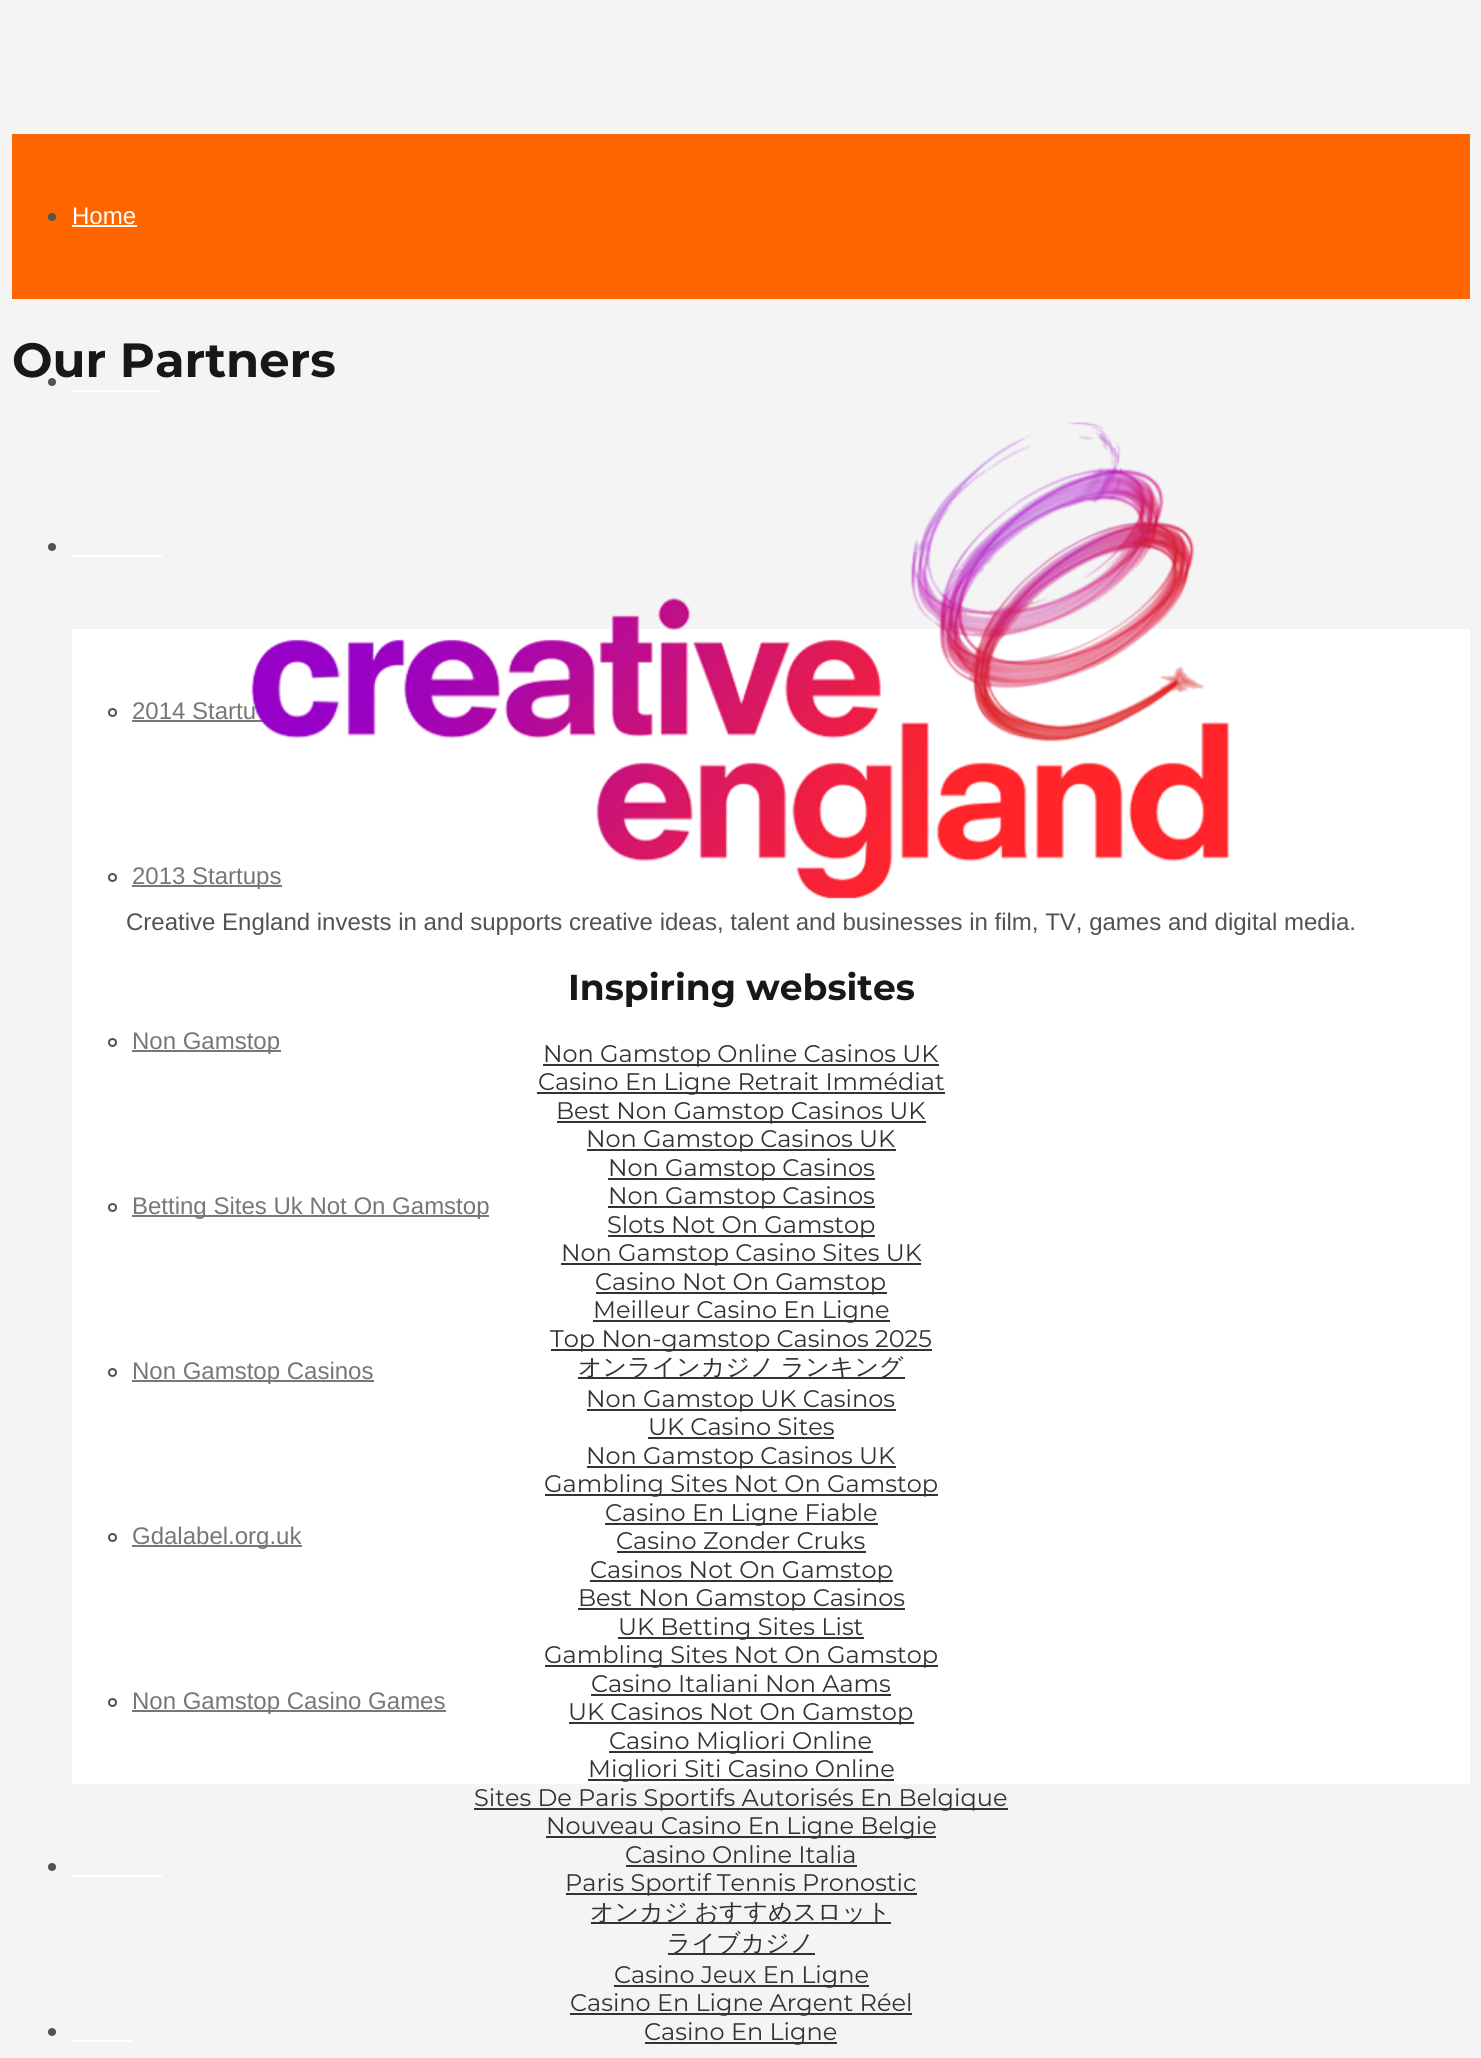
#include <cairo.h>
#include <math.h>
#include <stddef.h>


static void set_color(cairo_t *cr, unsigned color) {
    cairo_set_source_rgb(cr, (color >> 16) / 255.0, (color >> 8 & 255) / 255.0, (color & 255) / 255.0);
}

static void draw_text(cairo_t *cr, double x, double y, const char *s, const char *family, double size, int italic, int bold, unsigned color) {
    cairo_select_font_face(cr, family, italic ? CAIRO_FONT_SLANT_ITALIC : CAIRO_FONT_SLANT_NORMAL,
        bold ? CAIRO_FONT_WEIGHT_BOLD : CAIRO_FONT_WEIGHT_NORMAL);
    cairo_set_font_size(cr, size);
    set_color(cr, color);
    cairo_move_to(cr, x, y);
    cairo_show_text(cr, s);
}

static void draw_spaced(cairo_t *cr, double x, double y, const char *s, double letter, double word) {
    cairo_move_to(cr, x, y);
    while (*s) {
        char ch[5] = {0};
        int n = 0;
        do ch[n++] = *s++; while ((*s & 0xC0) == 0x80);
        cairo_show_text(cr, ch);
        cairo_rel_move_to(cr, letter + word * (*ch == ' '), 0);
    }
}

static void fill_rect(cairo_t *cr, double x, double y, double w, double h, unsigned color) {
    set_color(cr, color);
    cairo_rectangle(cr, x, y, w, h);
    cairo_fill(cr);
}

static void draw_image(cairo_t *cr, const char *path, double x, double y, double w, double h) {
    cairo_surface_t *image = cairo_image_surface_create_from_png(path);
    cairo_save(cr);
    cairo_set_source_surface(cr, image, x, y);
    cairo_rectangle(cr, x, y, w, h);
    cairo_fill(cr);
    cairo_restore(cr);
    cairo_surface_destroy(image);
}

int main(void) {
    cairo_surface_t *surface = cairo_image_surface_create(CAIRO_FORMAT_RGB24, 1481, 2058);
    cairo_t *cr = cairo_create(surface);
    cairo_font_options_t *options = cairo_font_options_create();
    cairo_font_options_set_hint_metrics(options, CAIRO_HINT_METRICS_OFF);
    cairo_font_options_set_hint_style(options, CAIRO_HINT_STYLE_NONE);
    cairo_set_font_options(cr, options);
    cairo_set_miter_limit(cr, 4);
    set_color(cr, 0xF4F4F4);
    cairo_paint(cr);
    fill_rect(cr, 12, 134, 1458, 165, 0xFF6600);
    set_color(cr, 0x525252);
    cairo_arc(cr, 52, 217, 4, 0, 2 * M_PI);
    cairo_fill(cr);
    draw_text(cr, 72, 224, "Home", "Liberation Sans", 24, 0, 0, 0xFFFFFF);
    fill_rect(cr, 72, 225, 65, 2, 0xFFFFFF);
    set_color(cr, 0x525252);
    cairo_new_path(cr);
    cairo_arc(cr, 52, 382, 4, 0, 2 * M_PI);
    cairo_fill(cr);
    fill_rect(cr, 72, 390, 87, 2, 0xFFFFFF);
    set_color(cr, 0x525252);
    cairo_arc(cr, 52, 547, 4, 0, 2 * M_PI);
    cairo_fill(cr);
    fill_rect(cr, 72, 555, 90, 2, 0xFFFFFF);
    fill_rect(cr, 72, 629, 1398, 1155, 0xFFFFFF);
    cairo_arc(cr, 112.5, 712.5, 3.5, 0, 2 * M_PI);
    set_color(cr, 0x525252);
    cairo_stroke(cr);
    draw_text(cr, 132, 719, "2014 Startu", "Liberation Sans", 24, 0, 0, 0x777777);
    fill_rect(cr, 132, 720, 133, 2, 0x777777);
    cairo_new_path(cr);
    cairo_arc(cr, 112.5, 877.5, 3.5, 0, 2 * M_PI);
    set_color(cr, 0x525252);
    cairo_stroke(cr);
    fill_rect(cr, 132, 885, 150, 2, 0x777777);
    draw_text(cr, 132, 884, "2013 Startups", "Liberation Sans", 24, 0, 0, 0x777777);
    cairo_new_path(cr);
    cairo_arc(cr, 112.5, 1042.5, 3.5, 0, 2 * M_PI);
    set_color(cr, 0x525252);
    cairo_stroke(cr);
    fill_rect(cr, 132, 1050, 149, 2, 0x777777);
    draw_text(cr, 132, 1049, "Non Gamstop", "Liberation Sans", 24, 0, 0, 0x777777);
    cairo_new_path(cr);
    cairo_arc(cr, 112.5, 1207.5, 3.5, 0, 2 * M_PI);
    set_color(cr, 0x525252);
    cairo_stroke(cr);
    fill_rect(cr, 132, 1215, 357, 2, 0x777777);
    draw_text(cr, 132, 1214, "Betting Sites Uk Not On Gamstop", "Liberation Sans", 24, 0, 0, 0x777777);
    cairo_new_path(cr);
    cairo_arc(cr, 112.5, 1372.5, 3.5, 0, 2 * M_PI);
    set_color(cr, 0x525252);
    cairo_stroke(cr);
    fill_rect(cr, 132, 1380, 242, 2, 0x777777);
    draw_text(cr, 132, 1379, "Non Gamstop Casinos", "Liberation Sans", 24, 0, 0, 0x777777);
    cairo_new_path(cr);
    cairo_arc(cr, 112.5, 1537.5, 3.5, 0, 2 * M_PI);
    set_color(cr, 0x525252);
    cairo_stroke(cr);
    fill_rect(cr, 132, 1545, 170, 2, 0x777777);
    draw_text(cr, 132, 1544, "Gdalabel.org.uk", "Liberation Sans", 24, 0, 0, 0x777777);
    cairo_new_path(cr);
    cairo_arc(cr, 112.5, 1702.5, 3.5, 0, 2 * M_PI);
    set_color(cr, 0x525252);
    cairo_stroke(cr);
    fill_rect(cr, 132, 1710, 314, 2, 0x777777);
    draw_text(cr, 132, 1709, "Non Gamstop Casino Games", "Liberation Sans", 24, 0, 0, 0x777777);
    set_color(cr, 0x525252);
    cairo_new_path(cr);
    cairo_arc(cr, 52, 1867, 4, 0, 2 * M_PI);
    cairo_fill(cr);
    fill_rect(cr, 72, 1875, 90, 2, 0xFFFFFF);
    set_color(cr, 0x525252);
    cairo_arc(cr, 52, 2032, 4, 0, 2 * M_PI);
    cairo_fill(cr);
    fill_rect(cr, 72, 2040, 60, 2, 0xFFFFFF);
    draw_text(cr, 12, 377, "Our Partners", "Montserrat", 48, 0, 1, 0x191819);
    draw_image(cr, "assets/img1.png", 251, 422, 978, 477);
    draw_text(cr, 126, 930, "Creative England invests in and supports creative ideas, talent and businesses in film, TV, games and digital media.", "Liberation Sans", 24, 0, 0, 0x525252);
    draw_text(cr, 568, 1000, "Inspiring websites", "Montserrat", 36, 0, 1, 0x191819);
    fill_rect(cr, 543, 1064, 396, 2, 0x333333);
    draw_text(cr, 543, 1062, "Non Gamstop Online Casinos UK", "Montserrat", 24, 0, 0, 0x333333);
    fill_rect(cr, 537, 1092, 408, 2, 0x333333);
    draw_text(cr, 538, 1090, "Casino En Ligne Retrait Immédiat", "Montserrat", 24, 0, 0, 0x333333);
    fill_rect(cr, 557, 1121, 369, 2, 0x333333);
    draw_text(cr, 556, 1119, "Best Non Gamstop Casinos UK", "Montserrat", 24, 0, 0, 0x333333);
    fill_rect(cr, 587, 1149, 309, 2, 0x333333);
    draw_text(cr, 586, 1147, "Non Gamstop Casinos UK", "Montserrat", 24, 0, 0, 0x333333);
    fill_rect(cr, 608, 1178, 267, 2, 0x333333);
    draw_text(cr, 608, 1176, "Non Gamstop Casinos", "Montserrat", 24, 0, 0, 0x333333);
    fill_rect(cr, 608, 1206, 267, 2, 0x333333);
    draw_text(cr, 608, 1204, "Non Gamstop Casinos", "Montserrat", 24, 0, 0, 0x333333);
    fill_rect(cr, 608, 1235, 267, 2, 0x333333);
    draw_text(cr, 607, 1233, "Slots Not On Gamstop", "Montserrat", 24, 0, 0, 0x333333);
    fill_rect(cr, 561, 1263, 360, 2, 0x333333);
    draw_text(cr, 561, 1261, "Non Gamstop Casino Sites UK", "Montserrat", 24, 0, 0, 0x333333);
    fill_rect(cr, 596, 1292, 291, 2, 0x333333);
    draw_text(cr, 595, 1290, "Casino Not On Gamstop", "Montserrat", 24, 0, 0, 0x333333);
    fill_rect(cr, 593, 1320, 297, 2, 0x333333);
    draw_text(cr, 593, 1318, "Meilleur Casino En Ligne", "Montserrat", 24, 0, 0, 0x333333);
    fill_rect(cr, 551, 1349, 381, 2, 0x333333);
    draw_text(cr, 550, 1347, "Top Non-gamstop Casinos 2025", "Montserrat", 24, 0, 0, 0x333333);
    fill_rect(cr, 578, 1377, 327, 2, 0x333333);
    cairo_select_font_face(cr, "WenQuanYi Zen Hei Medium", CAIRO_FONT_SLANT_NORMAL, CAIRO_FONT_WEIGHT_NORMAL);
    draw_spaced(cr, 578, 1375, "オンラインカジノ ランキング", 0, -1);
    fill_rect(cr, 587, 1409, 309, 2, 0x333333);
    draw_text(cr, 586, 1407, "Non Gamstop UK Casinos", "Montserrat", 24, 0, 0, 0x333333);
    draw_text(cr, 648, 1435, "UK Casino Sites", "Montserrat", 24, 0, 0, 0x333333);
    fill_rect(cr, 648, 1437, 186, 2, 0x333333);
    fill_rect(cr, 587, 1466, 309, 2, 0x333333);
    draw_text(cr, 586, 1464, "Non Gamstop Casinos UK", "Montserrat", 24, 0, 0, 0x333333);
    fill_rect(cr, 545, 1494, 393, 2, 0x333333);
    draw_text(cr, 544, 1492, "Gambling Sites Not On Gamstop", "Montserrat", 24, 0, 0, 0x333333);
    fill_rect(cr, 605, 1523, 273, 2, 0x333333);
    draw_text(cr, 605, 1521, "Casino En Ligne Fiable", "Montserrat", 24, 0, 0, 0x333333);
    draw_text(cr, 616, 1549, "Casino Zonder Cruks", "Montserrat", 24, 0, 0, 0x333333);
    fill_rect(cr, 617, 1551, 249, 2, 0x333333);
    fill_rect(cr, 590, 1580, 303, 2, 0x333333);
    draw_text(cr, 590, 1578, "Casinos Not On Gamstop", "Montserrat", 24, 0, 0, 0x333333);
    fill_rect(cr, 578, 1608, 327, 2, 0x333333);
    draw_text(cr, 578, 1606, "Best Non Gamstop Casinos", "Montserrat", 24, 0, 0, 0x333333);
    fill_rect(cr, 618, 1637, 246, 2, 0x333333);
    draw_text(cr, 618, 1635, "UK Betting Sites List", "Montserrat", 24, 0, 0, 0x333333);
    fill_rect(cr, 545, 1665, 393, 2, 0x333333);
    draw_text(cr, 544, 1663, "Gambling Sites Not On Gamstop", "Montserrat", 24, 0, 0, 0x333333);
    draw_text(cr, 591, 1692, "Casino Italiani Non Aams", "Montserrat", 24, 0, 0, 0x333333);
    fill_rect(cr, 591, 1694, 300, 2, 0x333333);
    fill_rect(cr, 569, 1722, 345, 2, 0x333333);
    draw_text(cr, 568, 1720, "UK Casinos Not On Gamstop", "Montserrat", 24, 0, 0, 0x333333);
    fill_rect(cr, 609, 1751, 264, 2, 0x333333);
    draw_text(cr, 609, 1749, "Casino Migliori Online", "Montserrat", 24, 0, 0, 0x333333);
    fill_rect(cr, 588, 1779, 306, 2, 0x333333);
    draw_text(cr, 588, 1777, "Migliori Siti Casino Online", "Montserrat", 24, 0, 0, 0x333333);
    fill_rect(cr, 474, 1808, 534, 2, 0x333333);
    draw_text(cr, 474, 1806, "Sites De Paris Sportifs Autorisés En Belgique", "Montserrat", 24, 0, 0, 0x333333);
    fill_rect(cr, 546, 1836, 390, 2, 0x333333);
    draw_text(cr, 546, 1834, "Nouveau Casino En Ligne Belgie", "Montserrat", 24, 0, 0, 0x333333);
    draw_text(cr, 625, 1863, "Casino Online Italia", "Montserrat", 24, 0, 0, 0x333333);
    fill_rect(cr, 626, 1865, 231, 2, 0x333333);
    fill_rect(cr, 566, 1893, 351, 2, 0x333333);
    draw_text(cr, 565, 1891, "Paris Sportif Tennis Pronostic", "Montserrat", 24, 0, 0, 0x333333);
    fill_rect(cr, 591, 1922, 300, 2, 0x333333);
    cairo_select_font_face(cr, "WenQuanYi Zen Hei Medium", CAIRO_FONT_SLANT_NORMAL, CAIRO_FONT_WEIGHT_NORMAL);
    draw_spaced(cr, 590, 1920, "オンカジ おすすめスロット", 0, -1);
    fill_rect(cr, 668, 1953, 147, 2, 0x333333);
    draw_text(cr, 667, 1951, "ライブカジノ", "WenQuanYi Zen Hei Medium", 24, 0, 0, 0x333333);
    fill_rect(cr, 614, 1985, 255, 2, 0x333333);
    draw_text(cr, 614, 1983, "Casino Jeux En Ligne", "Montserrat", 24, 0, 0, 0x333333);
    fill_rect(cr, 570, 2013, 342, 2, 0x333333);
    draw_text(cr, 570, 2011, "Casino En Ligne Argent Réel", "Montserrat", 24, 0, 0, 0x333333);
    fill_rect(cr, 645, 2042, 192, 2, 0x333333);
    draw_text(cr, 644, 2040, "Casino En Ligne", "Montserrat", 24, 0, 0, 0x333333);
    cairo_surface_write_to_png(surface, "output.png");
    cairo_font_options_destroy(options);
    cairo_destroy(cr);
    cairo_surface_destroy(surface);
    return 0;
}
